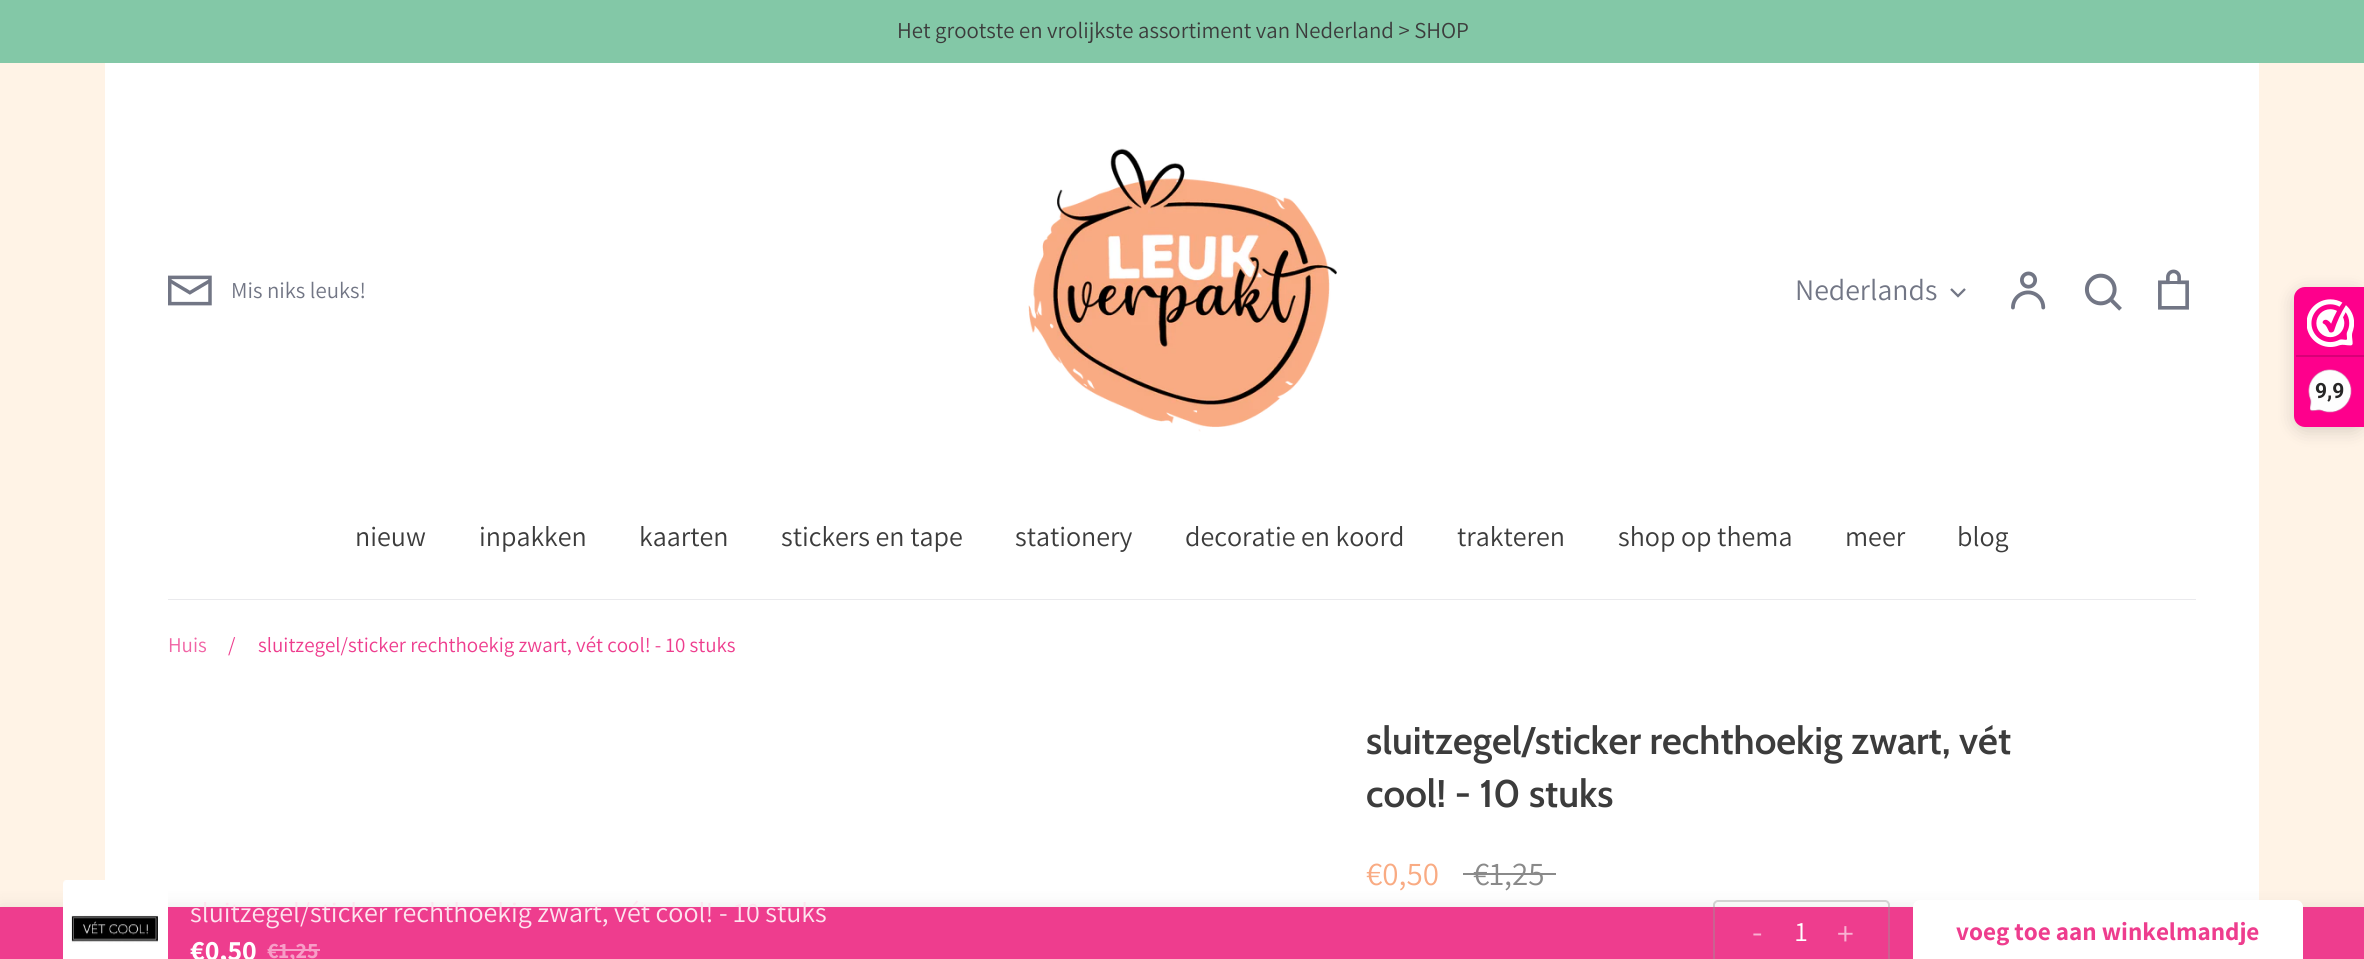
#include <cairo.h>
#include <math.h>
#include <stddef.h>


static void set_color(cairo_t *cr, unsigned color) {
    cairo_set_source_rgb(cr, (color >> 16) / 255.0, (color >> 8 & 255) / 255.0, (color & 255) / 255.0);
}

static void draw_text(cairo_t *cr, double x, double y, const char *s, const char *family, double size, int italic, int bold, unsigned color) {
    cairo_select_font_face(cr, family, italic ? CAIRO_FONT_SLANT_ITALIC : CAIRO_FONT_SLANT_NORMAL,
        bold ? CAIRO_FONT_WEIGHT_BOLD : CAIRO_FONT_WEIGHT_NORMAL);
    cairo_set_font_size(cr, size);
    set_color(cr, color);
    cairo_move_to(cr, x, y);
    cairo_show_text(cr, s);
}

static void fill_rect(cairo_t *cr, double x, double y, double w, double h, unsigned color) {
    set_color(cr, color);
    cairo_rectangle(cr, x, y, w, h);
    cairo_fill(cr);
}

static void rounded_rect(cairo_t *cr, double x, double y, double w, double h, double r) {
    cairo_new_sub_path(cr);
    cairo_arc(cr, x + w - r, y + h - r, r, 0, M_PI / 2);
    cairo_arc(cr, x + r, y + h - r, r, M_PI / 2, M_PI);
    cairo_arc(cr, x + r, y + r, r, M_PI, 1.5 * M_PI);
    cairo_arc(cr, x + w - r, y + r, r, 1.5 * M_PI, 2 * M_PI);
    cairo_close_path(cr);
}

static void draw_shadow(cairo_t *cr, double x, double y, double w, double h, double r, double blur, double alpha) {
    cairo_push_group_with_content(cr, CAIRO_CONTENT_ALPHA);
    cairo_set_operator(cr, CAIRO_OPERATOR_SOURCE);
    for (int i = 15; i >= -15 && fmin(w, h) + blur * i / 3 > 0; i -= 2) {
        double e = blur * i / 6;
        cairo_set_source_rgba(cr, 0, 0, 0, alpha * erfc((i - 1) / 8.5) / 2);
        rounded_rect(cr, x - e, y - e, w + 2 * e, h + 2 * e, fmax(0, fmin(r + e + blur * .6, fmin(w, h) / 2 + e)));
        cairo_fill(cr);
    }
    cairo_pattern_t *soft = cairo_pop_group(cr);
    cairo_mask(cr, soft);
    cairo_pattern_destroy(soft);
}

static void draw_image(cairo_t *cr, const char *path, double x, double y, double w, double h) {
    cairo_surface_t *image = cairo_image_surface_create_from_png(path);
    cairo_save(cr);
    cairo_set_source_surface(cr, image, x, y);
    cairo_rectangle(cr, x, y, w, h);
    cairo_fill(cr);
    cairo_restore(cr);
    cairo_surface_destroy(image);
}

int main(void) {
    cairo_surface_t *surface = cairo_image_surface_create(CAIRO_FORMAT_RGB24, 2364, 959);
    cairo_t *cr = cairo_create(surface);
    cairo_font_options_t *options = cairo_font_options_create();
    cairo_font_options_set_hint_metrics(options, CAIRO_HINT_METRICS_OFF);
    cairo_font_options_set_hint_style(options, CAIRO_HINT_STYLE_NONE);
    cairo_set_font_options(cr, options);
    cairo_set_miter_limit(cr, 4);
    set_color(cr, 0xFFF3E6);
    cairo_paint(cr);
    fill_rect(cr, 0, 0, 2364, 63, 0x83C8A7);
    draw_text(cr, 897, 38, "Het grootste en vrolijkste assortiment van Nederland > SHOP", "Assistant", 22.75, 0, 0, 0x3C3C3C);
    fill_rect(cr, 105, 63, 2154, 844, 0xFFFFFF);
    fill_rect(cr, 168, 599, 2028, 1, 0xEAEAED);
    draw_image(cr, "assets/img1.png", 168, 275, 44, 31);
    draw_text(cr, 231, 298, "Mis niks leuks!", "Assistant", 22.75, 0, 0, 0x727685);
    draw_image(cr, "assets/img2.png", 1028, 148, 309, 284);
    draw_text(cr, 1795, 300, "Nederlands", "Assistant", 29.75, 0, 0, 0x727685);
    cairo_new_path(cr);
    cairo_move_to(cr, 1951, 289);
    cairo_line_to(cr, 1958, 296);
    cairo_line_to(cr, 1965, 289);
    cairo_set_line_width(cr, 2.3);
    cairo_stroke(cr);
    draw_image(cr, "assets/img3.png", 2011, 271, 35, 39);
    draw_image(cr, "assets/img4.png", 2084, 273, 38, 38);
    draw_image(cr, "assets/img5.png", 2158, 269, 31, 41);
    draw_text(cr, 355, 546, "nieuw", "Assistant", 28, 0, 0, 0x3C3C3C);
    draw_text(cr, 479, 546, "inpakken", "Assistant", 28, 0, 0, 0x3C3C3C);
    draw_text(cr, 639, 546, "kaarten", "Assistant", 28, 0, 0, 0x3C3C3C);
    draw_text(cr, 781, 546, "stickers en tape", "Assistant", 28, 0, 0, 0x3C3C3C);
    draw_text(cr, 1015, 546, "stationery", "Assistant", 28, 0, 0, 0x3C3C3C);
    draw_text(cr, 1185, 546, "decoratie en koord", "Assistant", 28, 0, 0, 0x3C3C3C);
    draw_text(cr, 1457, 546, "trakteren", "Assistant", 28, 0, 0, 0x3C3C3C);
    draw_text(cr, 1618, 546, "shop op thema", "Assistant", 28, 0, 0, 0x3C3C3C);
    draw_text(cr, 1845, 546, "meer", "Assistant", 28, 0, 0, 0x3C3C3C);
    draw_text(cr, 1957, 546, "blog", "Assistant", 28, 0, 0, 0x3C3C3C);
    set_color(cr, 0x000000);
    draw_shadow(cr, 2294, 291, 70, 140, 11, 9, 0.15);
    set_color(cr, 0xFE008C);
    cairo_new_path(cr);
    cairo_move_to(cr, 2305, 287);
    cairo_line_to(cr, 2364, 287);
    cairo_line_to(cr, 2364, 427);
    cairo_line_to(cr, 2305, 427);
    cairo_curve_to(cr, 2299, 427, 2294, 422, 2294, 416);
    cairo_line_to(cr, 2294, 298);
    cairo_curve_to(cr, 2294, 292, 2299, 287, 2305, 287);
    cairo_close_path(cr);
    cairo_fill(cr);
    draw_image(cr, "assets/img6.png", 2307, 299, 47, 48);
    fill_rect(cr, 2296, 355, 68, 2, 0xD80077);
    draw_image(cr, "assets/img7.png", 2308, 369, 44, 44);
    draw_text(cr, 2315, 398, "9,9", "Roboto", 21, 0, 1, 0x272626);
    draw_text(cr, 168, 652, "Huis", "Assistant", 21, 0, 0, 0xF164A5);
    draw_text(cr, 228, 652, "/", "Assistant", 21, 0, 0, 0xEE3D8E);
    draw_text(cr, 258, 652, "sluitzegel/sticker rechthoekig zwart, vét cool! - 10 stuks", "Assistant", 21, 0, 0, 0xEE3D8E);
    draw_text(cr, 1366, 754, "sluitzegel/sticker rechthoekig zwart, vét", "Cabin SemiBold", 38.5, 0, 0, 0x3C3C3C);
    draw_text(cr, 1366, 807, "cool! - 10 stuks", "Cabin SemiBold", 38.5, 0, 0, 0x3C3C3C);
    draw_text(cr, 1366, 885, "€0,50", "Assistant", 33, 0, 0, 0xF9AB83);
    draw_text(cr, 1473, 885, "€1,25", "Assistant", 33, 0, 0, 0x8A8A8A);
    fill_rect(cr, 1463, 873, 93, 2, 0x8A8A8A);
    set_color(cr, 0x000000);
    draw_shadow(cr, 0, 907, 2364, 52, 0, 9, 0.09);
    fill_rect(cr, 0, 907, 2364, 52, 0xEE3D8E);
    draw_image(cr, "assets/img8.png", 63, 880, 105, 79);
    draw_text(cr, 190, 922, "sluitzegel/sticker rechthoekig zwart, vét cool! - 10 stuks", "Assistant", 28, 0, 0, 0xFDE4EF);
    draw_text(cr, 190, 960, "€0,50", "Assistant", 28, 0, 1, 0xFFFFFF);
    draw_text(cr, 267, 958, "€1,25", "Assistant", 22, 0, 1, 0xF79EC7);
    fill_rect(cr, 268, 949, 52, 2, 0xF79EC7);
    rounded_rect(cr, 1714, 901, 175, 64, 4);
    cairo_set_source_rgba(cr, 0.588, 0.588, 0.588, 0.4);
    cairo_set_line_width(cr, 2);
    cairo_stroke(cr);
    draw_text(cr, 1752, 943, "-", "Assistant", 34, 0, 0, 0xF8B1D2);
    draw_text(cr, 1795, 941, "1", "Assistant", 28, 0, 0, 0xFFFFFF);
    draw_text(cr, 1837, 945, "+", "Assistant", 34, 0, 0, 0xF8B1D2);
    set_color(cr, 0xFFFFFF);
    rounded_rect(cr, 1913, 900, 390, 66, 7);
    cairo_fill(cr);
    draw_text(cr, 1956, 940, "voeg toe aan winkelmandje", "Assistant", 25.25, 0, 1, 0xEE3D8E);
    cairo_surface_write_to_png(surface, "output.png");
    cairo_font_options_destroy(options);
    cairo_destroy(cr);
    cairo_surface_destroy(surface);
    return 0;
}
